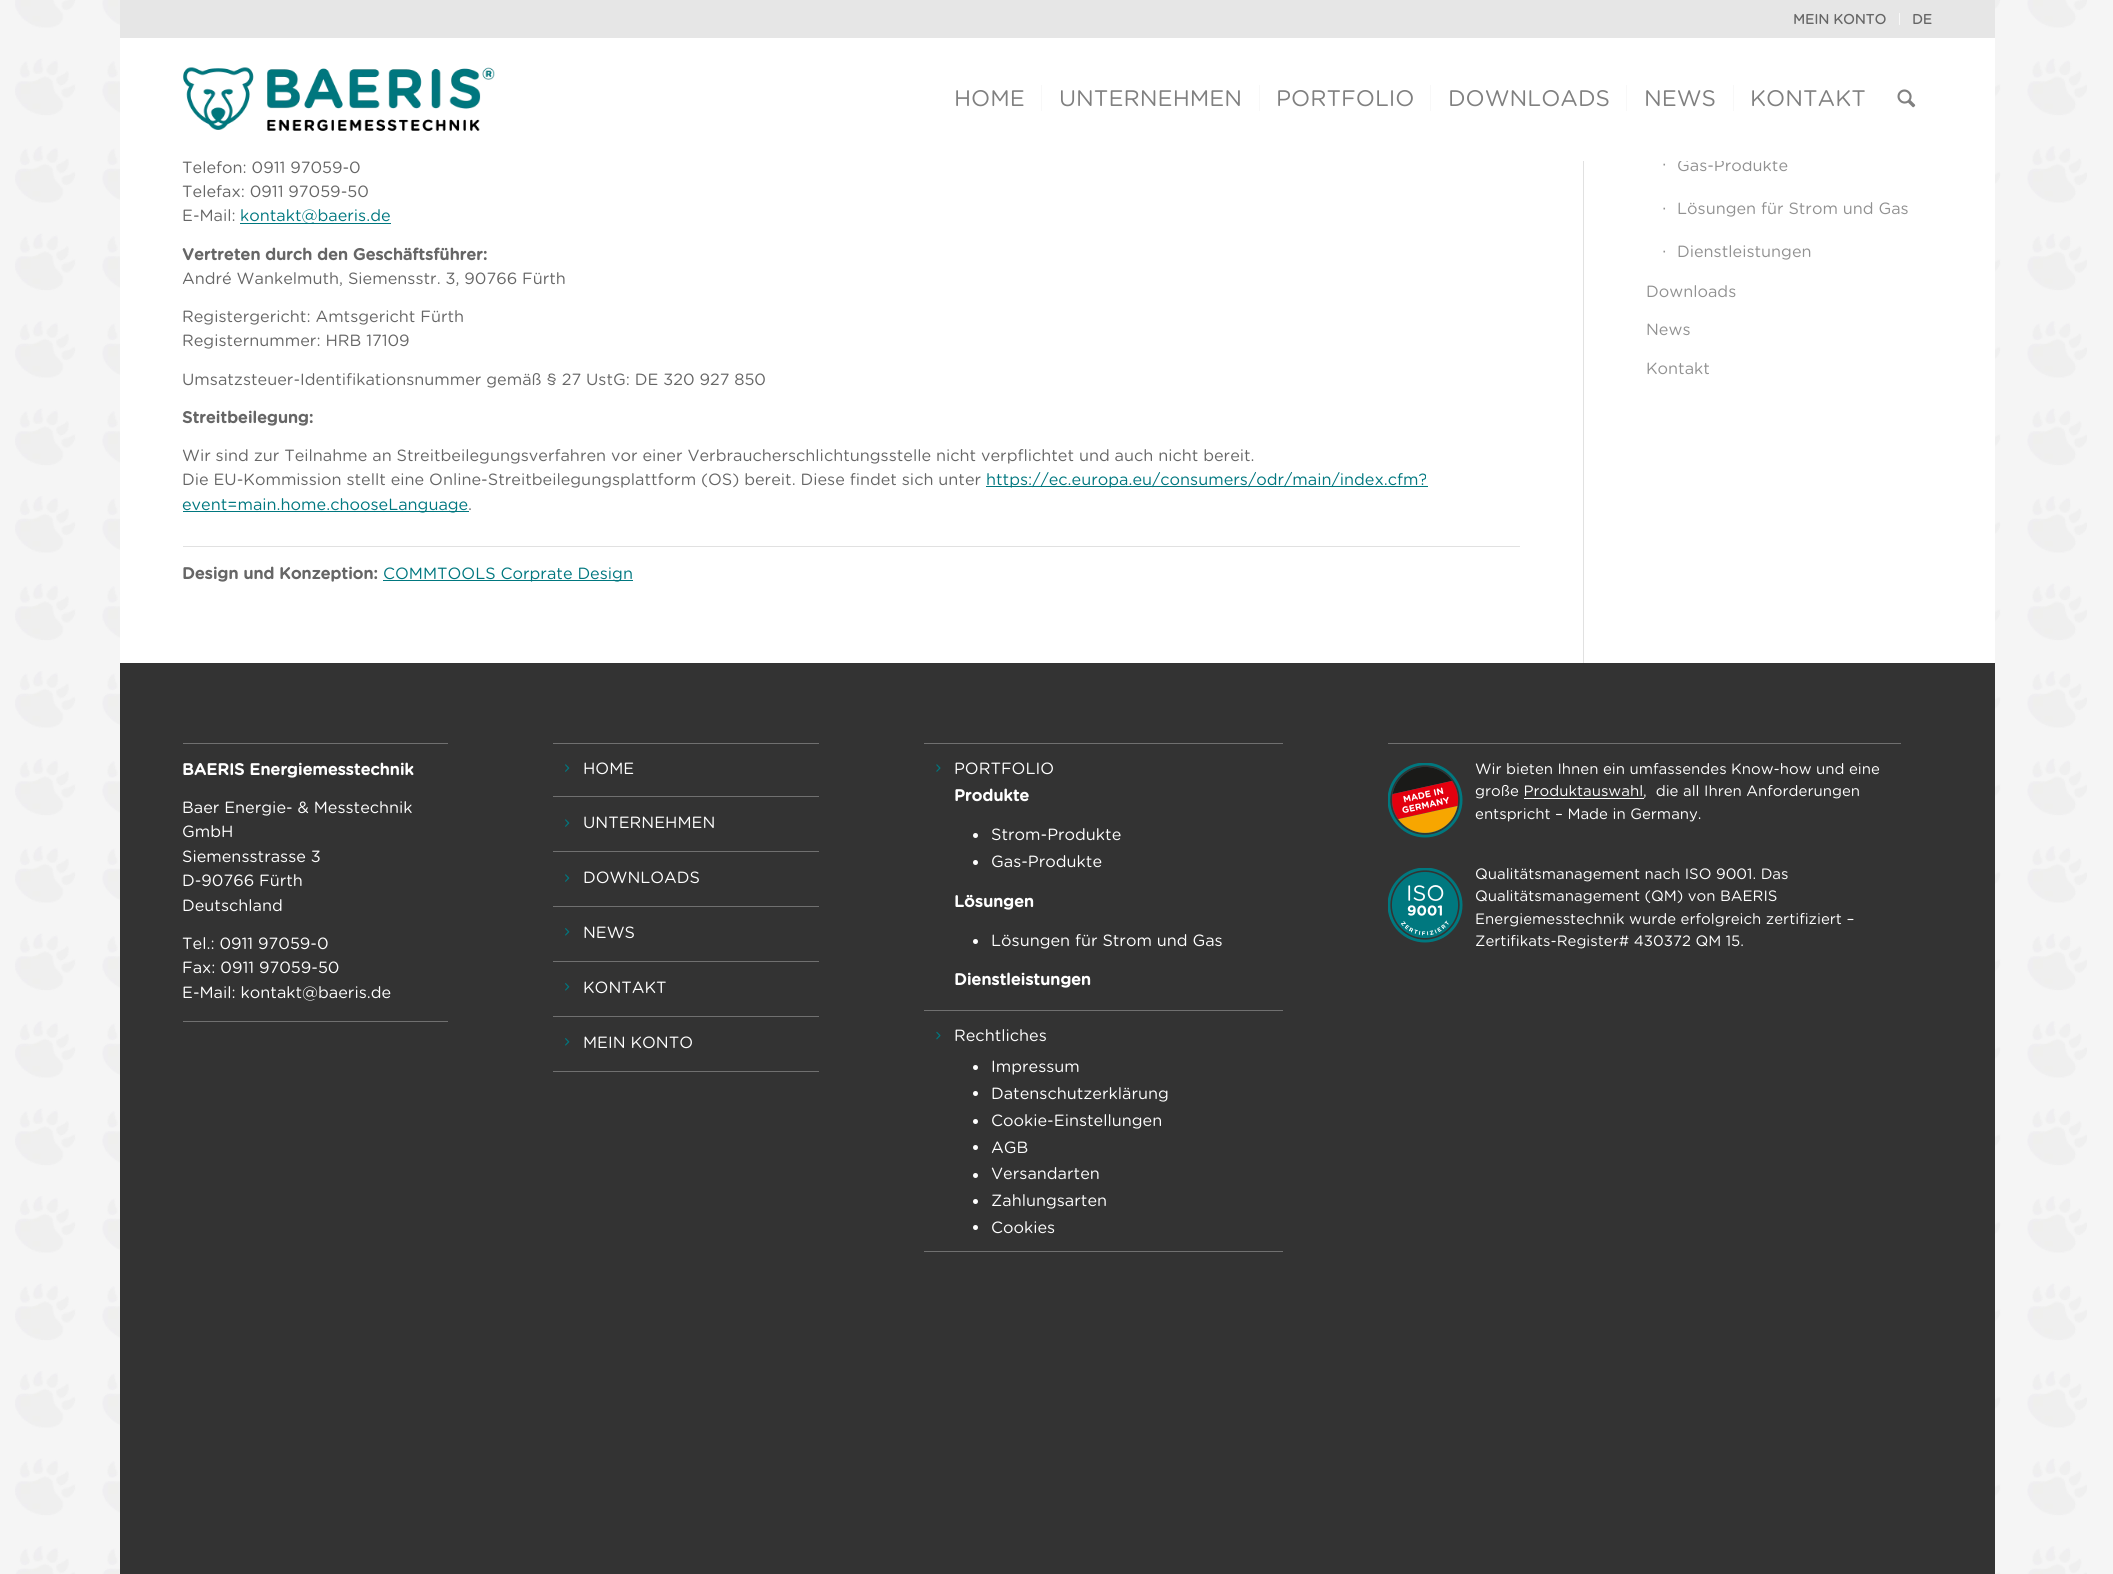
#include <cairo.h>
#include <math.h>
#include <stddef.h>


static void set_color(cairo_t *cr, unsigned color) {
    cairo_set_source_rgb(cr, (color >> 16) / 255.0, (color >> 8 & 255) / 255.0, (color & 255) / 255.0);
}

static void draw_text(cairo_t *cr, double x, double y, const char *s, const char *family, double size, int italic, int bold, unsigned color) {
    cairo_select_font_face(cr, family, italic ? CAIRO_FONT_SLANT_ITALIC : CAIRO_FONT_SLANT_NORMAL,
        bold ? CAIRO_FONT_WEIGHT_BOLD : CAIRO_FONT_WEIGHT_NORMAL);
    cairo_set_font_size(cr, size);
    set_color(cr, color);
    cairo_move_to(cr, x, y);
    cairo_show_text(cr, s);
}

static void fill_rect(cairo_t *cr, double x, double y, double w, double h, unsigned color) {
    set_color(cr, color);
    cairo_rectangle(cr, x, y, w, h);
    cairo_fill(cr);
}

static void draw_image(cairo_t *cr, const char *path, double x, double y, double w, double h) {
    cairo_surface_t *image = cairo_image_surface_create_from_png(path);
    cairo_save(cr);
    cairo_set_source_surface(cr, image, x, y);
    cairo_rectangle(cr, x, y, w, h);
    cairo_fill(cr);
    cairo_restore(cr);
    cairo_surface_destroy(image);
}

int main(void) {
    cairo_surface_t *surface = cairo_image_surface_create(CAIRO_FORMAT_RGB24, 2113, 1574);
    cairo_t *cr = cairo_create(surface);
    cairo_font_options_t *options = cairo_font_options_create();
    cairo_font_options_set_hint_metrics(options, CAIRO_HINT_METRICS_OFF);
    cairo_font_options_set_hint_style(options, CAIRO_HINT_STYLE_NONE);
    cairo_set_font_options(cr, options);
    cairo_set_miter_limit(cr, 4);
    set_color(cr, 0xF5F5F5);
    cairo_paint(cr);
    draw_image(cr, "assets/img1.png", 15, 0, 2072, 1574);
    fill_rect(cr, 120, 0, 1875, 38, 0xE6E6E6);
    fill_rect(cr, 1899, 13, 1, 12, 0xF8F8F8);
    draw_text(cr, 1793, 24, "MEIN KONTO", "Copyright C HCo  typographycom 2", 13.75, 0, 1, 0x666666);
    draw_text(cr, 1912, 24, "DE", "Copyright C HCo  typographycom 2", 13.75, 0, 1, 0x666666);
    fill_rect(cr, 120, 161, 1875, 502, 0xFFFFFF);
    draw_text(cr, 1677, 171, "Gas-Produkte", "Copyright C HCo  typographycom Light", 16.25, 0, 0, 0x919191);
    fill_rect(cr, 120, 38, 1875, 123, 0xFFFFFF);
    draw_image(cr, "assets/img2.png", 183, 67, 312, 64);
    draw_text(cr, 954, 106, "HOME", "Copyright C HCo  typographycom Light", 22.5, 0, 0, 0x808080);
    draw_text(cr, 1059, 106, "UNTERNEHMEN", "Copyright C HCo  typographycom Light", 22.5, 0, 0, 0x808080);
    fill_rect(cr, 1041, 85, 1, 26, 0xF8F8F8);
    draw_text(cr, 1276, 106, "PORTFOLIO", "Copyright C HCo  typographycom Light", 22.5, 0, 0, 0x808080);
    fill_rect(cr, 1259, 85, 1, 26, 0xF8F8F8);
    draw_text(cr, 1448, 106, "DOWNLOADS", "Copyright C HCo  typographycom Light", 22.5, 0, 0, 0x808080);
    fill_rect(cr, 1430, 85, 1, 26, 0xF8F8F8);
    draw_text(cr, 1644, 106, "NEWS", "Copyright C HCo  typographycom Light", 22.5, 0, 0, 0x808080);
    fill_rect(cr, 1626, 85, 1, 26, 0xF8F8F8);
    draw_text(cr, 1750, 106, "KONTAKT", "Copyright C HCo  typographycom Light", 22.5, 0, 0, 0x808080);
    fill_rect(cr, 1733, 85, 1, 26, 0xF8F8F8);
    draw_image(cr, "assets/img3.png", 1897, 89, 19, 19);
    fill_rect(cr, 1583, 161, 1, 502, 0xE1E1E1);
    draw_text(cr, 182, 173, "Telefon: 0911 97059-0", "Copyright C HCo  typographycom Light", 16.25, 0, 0, 0x666666);
    draw_text(cr, 182, 197, "Telefax: 0911 97059-50", "Copyright C HCo  typographycom Light", 16.25, 0, 0, 0x666666);
    draw_text(cr, 182, 221, "E-Mail:", "Copyright C HCo  typographycom Light", 16.25, 0, 0, 0x666666);
    fill_rect(cr, 240, 223, 151, 1, 0x00777F);
    draw_text(cr, 240, 221, "kontakt@baeris.de", "Copyright C HCo  typographycom Light", 16.25, 0, 0, 0x00777F);
    draw_text(cr, 182, 260, "Vertreten durch den Geschäftsführer:", "Copyright C HCo  typographycom", 16.25, 0, 1, 0x666666);
    draw_text(cr, 182, 284, "André Wankelmuth, Siemensstr. 3, 90766 Fürth", "Copyright C HCo  typographycom Light", 16.25, 0, 0, 0x666666);
    draw_text(cr, 182, 322, "Registergericht: Amtsgericht Fürth", "Copyright C HCo  typographycom Light", 16.25, 0, 0, 0x666666);
    draw_text(cr, 182, 346, "Registernummer: HRB 17109", "Copyright C HCo  typographycom Light", 16.25, 0, 0, 0x666666);
    draw_text(cr, 182, 385, "Umsatzsteuer-Identifikationsnummer gemäß § 27 UstG: DE 320 927 850", "Copyright C HCo  typographycom Light", 16.25, 0, 0, 0x666666);
    draw_text(cr, 182, 423, "Streitbeilegung:", "Copyright C HCo  typographycom", 16.25, 0, 1, 0x666666);
    draw_text(cr, 182, 461, "Wir sind zur Teilnahme an Streitbeilegungsverfahren vor einer Verbraucherschlichtungsstelle nicht verpflichtet und auch nicht bereit.", "Copyright C HCo  typographycom Light", 16.25, 0, 0, 0x666666);
    draw_text(cr, 182, 485, "Die EU-Kommission stellt eine Online-Streitbeilegungsplattform (OS) bereit. Diese findet sich unter", "Copyright C HCo  typographycom Light", 16.25, 0, 0, 0x666666);
    fill_rect(cr, 986, 486, 442, 1, 0x00777F);
    draw_text(cr, 986, 485, "https://ec.europa.eu/consumers/odr/main/index.cfm?", "Copyright C HCo  typographycom Light", 16.25, 0, 0, 0x00777F);
    fill_rect(cr, 183, 511, 286, 1, 0x00777F);
    draw_text(cr, 182, 510, "event=main.home.chooseLanguage", "Copyright C HCo  typographycom Light", 16.25, 0, 0, 0x00777F);
    draw_text(cr, 468, 510, ".", "Copyright C HCo  typographycom Light", 16.25, 0, 0, 0x666666);
    fill_rect(cr, 183, 546, 1337, 1, 0xE1E1E1);
    draw_text(cr, 182, 579, "Design und Konzeption:", "Copyright C HCo  typographycom", 16.25, 0, 1, 0x666666);
    fill_rect(cr, 383, 580, 250, 1, 0x00777F);
    draw_text(cr, 383, 579, "COMMTOOLS Corprate Design", "Copyright C HCo  typographycom Light", 16.25, 0, 0, 0x00777F);
    draw_text(cr, 1662, 169, "∙", "Liberation Sans", 16.25, 0, 0, 0x919191);
    draw_text(cr, 1662, 213, "∙", "Liberation Sans", 16.25, 0, 0, 0x919191);
    draw_text(cr, 1677, 214, "Lösungen für Strom und Gas", "Copyright C HCo  typographycom Light", 16.25, 0, 0, 0x919191);
    draw_text(cr, 1662, 256, "∙", "Liberation Sans", 16.25, 0, 0, 0x919191);
    draw_text(cr, 1677, 257, "Dienstleistungen", "Copyright C HCo  typographycom Light", 16.25, 0, 0, 0x919191);
    draw_text(cr, 1646, 297, "Downloads", "Copyright C HCo  typographycom Light", 16.25, 0, 0, 0x919191);
    draw_text(cr, 1646, 335, "News", "Copyright C HCo  typographycom Light", 16.25, 0, 0, 0x919191);
    draw_text(cr, 1646, 374, "Kontakt", "Copyright C HCo  typographycom Light", 16.25, 0, 0, 0x919191);
    fill_rect(cr, 120, 663, 1875, 911, 0x333333);
    fill_rect(cr, 183, 743, 265, 1, 0x707070);
    draw_text(cr, 182, 775, "BAERIS Energiemesstechnik", "Copyright C HCo  typographycom", 16.25, 0, 1, 0xFFFFFF);
    draw_text(cr, 182, 813, "Baer Energie- & Messtechnik", "Copyright C HCo  typographycom Light", 16.25, 0, 0, 0xFFFFFF);
    draw_text(cr, 182, 837, "GmbH", "Copyright C HCo  typographycom Light", 16.25, 0, 0, 0xFFFFFF);
    draw_text(cr, 182, 862, "Siemensstrasse 3", "Copyright C HCo  typographycom Light", 16.25, 0, 0, 0xFFFFFF);
    draw_text(cr, 182, 886, "D-90766 Fürth", "Copyright C HCo  typographycom Light", 16.25, 0, 0, 0xFFFFFF);
    draw_text(cr, 182, 911, "Deutschland", "Copyright C HCo  typographycom Light", 16.25, 0, 0, 0xFFFFFF);
    draw_text(cr, 182, 949, "Tel.: 0911 97059-0", "Copyright C HCo  typographycom Light", 16.25, 0, 0, 0xFFFFFF);
    draw_text(cr, 182, 973, "Fax: 0911 97059-50", "Copyright C HCo  typographycom Light", 16.25, 0, 0, 0xFFFFFF);
    draw_text(cr, 182, 998, "E-Mail: kontakt@baeris.de", "Copyright C HCo  typographycom Light", 16.25, 0, 0, 0xFFFFFF);
    fill_rect(cr, 183, 1021, 265, 1, 0x707070);
    fill_rect(cr, 553, 743, 266, 1, 0x707070);
    draw_image(cr, "assets/img4.png", 565, 764, 5, 8);
    draw_text(cr, 583, 774, "HOME", "Copyright C HCo  typographycom Light", 16.25, 0, 0, 0xFFFFFF);
    fill_rect(cr, 553, 796, 266, 1, 0x707070);
    draw_image(cr, "assets/img4.png", 565, 819, 5, 8);
    draw_text(cr, 583, 828, "UNTERNEHMEN", "Copyright C HCo  typographycom Light", 16.25, 0, 0, 0xFFFFFF);
    fill_rect(cr, 553, 851, 266, 1, 0x707070);
    draw_image(cr, "assets/img4.png", 565, 874, 5, 8);
    draw_text(cr, 583, 883, "DOWNLOADS", "Copyright C HCo  typographycom Light", 16.25, 0, 0, 0xFFFFFF);
    fill_rect(cr, 553, 906, 266, 1, 0x707070);
    draw_image(cr, "assets/img5.png", 565, 928, 5, 8);
    draw_text(cr, 583, 938, "NEWS", "Copyright C HCo  typographycom Light", 16.25, 0, 0, 0xFFFFFF);
    fill_rect(cr, 553, 961, 266, 1, 0x707070);
    draw_image(cr, "assets/img5.png", 565, 983, 5, 8);
    draw_text(cr, 583, 993, "KONTAKT", "Copyright C HCo  typographycom Light", 16.25, 0, 0, 0xFFFFFF);
    fill_rect(cr, 553, 1016, 266, 1, 0x707070);
    draw_image(cr, "assets/img5.png", 565, 1038, 5, 8);
    draw_text(cr, 583, 1048, "MEIN KONTO", "Copyright C HCo  typographycom Light", 16.25, 0, 0, 0xFFFFFF);
    fill_rect(cr, 553, 1071, 266, 1, 0x707070);
    fill_rect(cr, 924, 743, 359, 1, 0x707070);
    draw_image(cr, "assets/img6.png", 936, 764, 5, 8);
    draw_text(cr, 954, 774, "PORTFOLIO", "Copyright C HCo  typographycom Light", 16.25, 0, 0, 0xFFFFFF);
    draw_text(cr, 954, 801, "Produkte", "Copyright C HCo  typographycom", 16.25, 0, 1, 0xFFFFFF);
    cairo_new_path(cr);
    cairo_arc(cr, 975.5, 835.5, 2.5, 0, 2 * M_PI);
    cairo_fill(cr);
    draw_text(cr, 991, 840, "Strom-Produkte", "Copyright C HCo  typographycom Light", 16.25, 0, 0, 0xFFFFFF);
    cairo_new_path(cr);
    cairo_arc(cr, 975.5, 862.5, 2.5, 0, 2 * M_PI);
    cairo_fill(cr);
    draw_text(cr, 991, 867, "Gas-Produkte", "Copyright C HCo  typographycom Light", 16.25, 0, 0, 0xFFFFFF);
    draw_text(cr, 954, 907, "Lösungen", "Copyright C HCo  typographycom", 16.25, 0, 1, 0xFFFFFF);
    cairo_new_path(cr);
    cairo_arc(cr, 975.5, 941.5, 2.5, 0, 2 * M_PI);
    cairo_fill(cr);
    draw_text(cr, 991, 946, "Lösungen für Strom und Gas", "Copyright C HCo  typographycom Light", 16.25, 0, 0, 0xFFFFFF);
    draw_text(cr, 954, 985, "Dienstleistungen", "Copyright C HCo  typographycom", 16.25, 0, 1, 0xFFFFFF);
    fill_rect(cr, 924, 1010, 359, 1, 0x707070);
    draw_image(cr, "assets/img7.png", 936, 1031, 5, 9);
    draw_text(cr, 954, 1041, "Rechtliches", "Copyright C HCo  typographycom Light", 16.25, 0, 0, 0xFFFFFF);
    cairo_new_path(cr);
    cairo_arc(cr, 975.5, 1067.5, 2.5, 0, 2 * M_PI);
    cairo_fill(cr);
    draw_text(cr, 991, 1072, "Impressum", "Copyright C HCo  typographycom Light", 16.25, 0, 0, 0xFFFFFF);
    cairo_new_path(cr);
    cairo_arc(cr, 975.5, 1093.5, 2.5, 0, 2 * M_PI);
    cairo_fill(cr);
    draw_text(cr, 991, 1099, "Datenschutzerklärung", "Copyright C HCo  typographycom Light", 16.25, 0, 0, 0xFFFFFF);
    cairo_new_path(cr);
    cairo_arc(cr, 975.5, 1121.5, 2.5, 0, 2 * M_PI);
    cairo_fill(cr);
    draw_text(cr, 991, 1126, "Cookie-Einstellungen", "Copyright C HCo  typographycom Light", 16.25, 0, 0, 0xFFFFFF);
    cairo_new_path(cr);
    cairo_arc(cr, 975.5, 1147.5, 2.5, 0, 2 * M_PI);
    cairo_fill(cr);
    draw_text(cr, 991, 1153, "AGB", "Copyright C HCo  typographycom Light", 16.25, 0, 0, 0xFFFFFF);
    cairo_new_path(cr);
    cairo_arc(cr, 975.5, 1175.5, 2.5, 0, 2 * M_PI);
    cairo_fill(cr);
    draw_text(cr, 991, 1179, "Versandarten", "Copyright C HCo  typographycom Light", 16.25, 0, 0, 0xFFFFFF);
    cairo_new_path(cr);
    cairo_arc(cr, 975.5, 1201.5, 2.5, 0, 2 * M_PI);
    cairo_fill(cr);
    draw_text(cr, 991, 1206, "Zahlungsarten", "Copyright C HCo  typographycom Light", 16.25, 0, 0, 0xFFFFFF);
    cairo_new_path(cr);
    cairo_arc(cr, 975.5, 1227.5, 2.5, 0, 2 * M_PI);
    cairo_fill(cr);
    draw_text(cr, 991, 1233, "Cookies", "Copyright C HCo  typographycom Light", 16.25, 0, 0, 0xFFFFFF);
    fill_rect(cr, 924, 1251, 359, 1, 0x707070);
    fill_rect(cr, 1388, 743, 513, 1, 0x707070);
    draw_image(cr, "assets/img8.png", 1388, 763, 75, 75);
    draw_text(cr, 1475, 774, "Wir bieten Ihnen ein umfassendes Know-how und eine", "Copyright C HCo  typographycom Light", 15, 0, 0, 0xFFFFFF);
    draw_text(cr, 1475, 796, "große Produktauswahl", "Copyright C HCo  typographycom Light", 15, 0, 0, 0xFFFFFF);
    fill_rect(cr, 1524, 798, 120, 1, 0xFFFFFF);
    draw_text(cr, 1643, 796, ",  die all Ihren Anforderungen", "Copyright C HCo  typographycom Light", 15, 0, 0, 0xFFFFFF);
    draw_text(cr, 1475, 819, "entspricht – Made in Germany.", "Copyright C HCo  typographycom Light", 15, 0, 0, 0xFFFFFF);
    draw_image(cr, "assets/img9.png", 1388, 868, 75, 75);
    draw_text(cr, 1475, 879, "Qualitätsmanagement nach ISO 9001. Das", "Copyright C HCo  typographycom Light", 15, 0, 0, 0xFFFFFF);
    draw_text(cr, 1475, 901, "Qualitätsmanagement (QM) von BAERIS", "Copyright C HCo  typographycom Light", 15, 0, 0, 0xFFFFFF);
    draw_text(cr, 1475, 924, "Energiemesstechnik wurde erfolgreich zertifiziert –", "Copyright C HCo  typographycom Light", 15, 0, 0, 0xFFFFFF);
    draw_text(cr, 1475, 946, "Zertifikats-Register# 430372 QM 15.", "Copyright C HCo  typographycom Light", 15, 0, 0, 0xFFFFFF);
    cairo_surface_write_to_png(surface, "output.png");
    cairo_font_options_destroy(options);
    cairo_destroy(cr);
    cairo_surface_destroy(surface);
    return 0;
}
